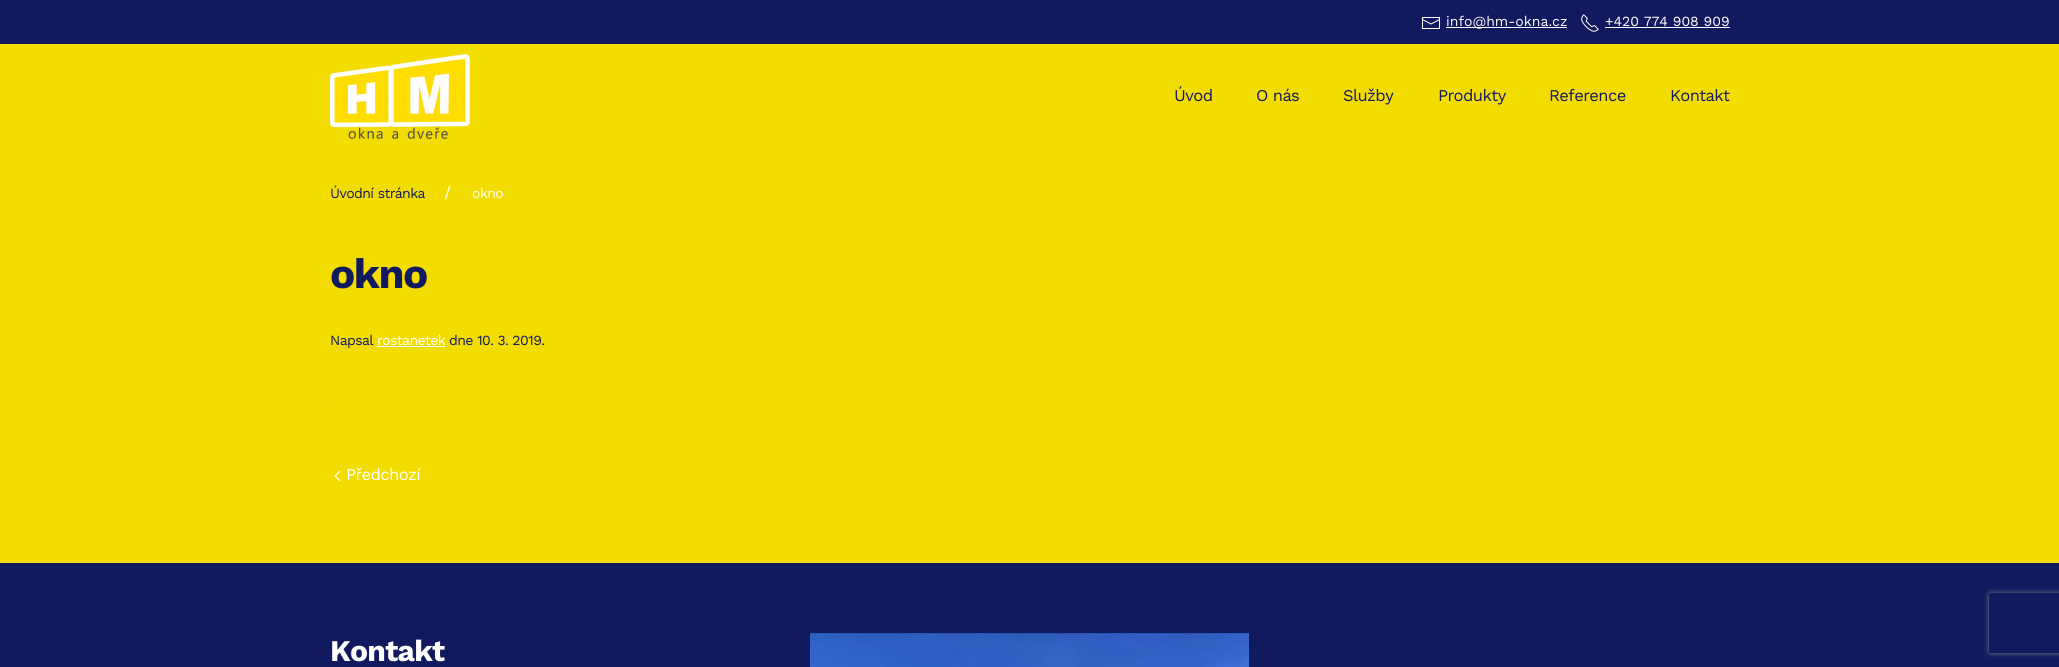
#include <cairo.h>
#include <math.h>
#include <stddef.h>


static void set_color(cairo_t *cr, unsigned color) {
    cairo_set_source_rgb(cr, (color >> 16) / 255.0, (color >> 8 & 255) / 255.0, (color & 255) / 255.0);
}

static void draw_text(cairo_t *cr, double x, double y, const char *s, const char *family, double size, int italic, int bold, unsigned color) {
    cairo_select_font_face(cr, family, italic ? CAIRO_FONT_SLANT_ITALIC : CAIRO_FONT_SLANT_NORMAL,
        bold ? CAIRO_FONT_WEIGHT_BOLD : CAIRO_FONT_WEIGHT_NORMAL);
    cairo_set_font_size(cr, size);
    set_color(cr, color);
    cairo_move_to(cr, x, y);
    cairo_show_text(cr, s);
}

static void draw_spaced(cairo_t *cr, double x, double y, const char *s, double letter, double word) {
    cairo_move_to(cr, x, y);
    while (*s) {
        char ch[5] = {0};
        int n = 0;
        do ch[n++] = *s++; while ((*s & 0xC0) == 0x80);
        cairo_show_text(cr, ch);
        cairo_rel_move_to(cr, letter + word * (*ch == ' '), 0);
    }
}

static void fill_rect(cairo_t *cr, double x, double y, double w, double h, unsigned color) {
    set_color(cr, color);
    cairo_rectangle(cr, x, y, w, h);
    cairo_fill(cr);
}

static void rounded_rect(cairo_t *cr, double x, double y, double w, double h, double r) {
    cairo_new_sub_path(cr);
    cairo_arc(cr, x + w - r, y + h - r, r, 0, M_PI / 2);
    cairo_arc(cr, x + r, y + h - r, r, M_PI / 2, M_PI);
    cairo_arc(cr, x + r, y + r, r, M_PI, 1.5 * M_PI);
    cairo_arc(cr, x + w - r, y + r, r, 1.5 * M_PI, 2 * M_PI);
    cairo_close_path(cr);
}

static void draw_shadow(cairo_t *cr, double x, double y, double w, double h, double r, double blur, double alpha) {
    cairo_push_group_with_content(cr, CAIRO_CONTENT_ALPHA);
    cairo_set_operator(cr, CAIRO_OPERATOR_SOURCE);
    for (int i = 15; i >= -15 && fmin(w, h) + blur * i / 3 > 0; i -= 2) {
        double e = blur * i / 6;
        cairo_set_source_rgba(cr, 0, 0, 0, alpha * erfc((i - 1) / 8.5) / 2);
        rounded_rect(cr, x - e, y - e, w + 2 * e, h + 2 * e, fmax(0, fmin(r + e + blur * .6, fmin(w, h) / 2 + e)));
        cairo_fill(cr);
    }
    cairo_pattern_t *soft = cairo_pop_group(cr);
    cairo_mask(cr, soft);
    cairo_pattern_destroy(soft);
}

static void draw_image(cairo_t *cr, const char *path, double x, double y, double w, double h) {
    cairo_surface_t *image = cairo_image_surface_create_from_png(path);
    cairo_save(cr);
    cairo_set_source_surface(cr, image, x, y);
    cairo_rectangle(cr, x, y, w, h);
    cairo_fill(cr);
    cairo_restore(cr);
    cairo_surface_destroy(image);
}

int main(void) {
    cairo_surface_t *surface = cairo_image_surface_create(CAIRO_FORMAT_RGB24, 2059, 667);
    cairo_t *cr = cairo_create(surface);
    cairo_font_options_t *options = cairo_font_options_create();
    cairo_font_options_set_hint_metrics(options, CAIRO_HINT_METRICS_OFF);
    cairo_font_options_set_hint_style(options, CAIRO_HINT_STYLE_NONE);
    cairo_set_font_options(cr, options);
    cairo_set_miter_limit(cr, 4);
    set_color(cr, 0xF3DC00);
    cairo_paint(cr);
    fill_rect(cr, 0, 0, 2059, 44, 0x111A5F);
    draw_image(cr, "assets/img1.png", 1422, 17, 18, 12);
    fill_rect(cr, 1446, 27, 121, 1, 0xFFFFFF);
    draw_text(cr, 1446, 26, "info@hm-okna.cz", "Work Sans", 14, 0, 0, 0xFFFFFF);
    draw_image(cr, "assets/img2.png", 1581, 14, 18, 18);
    draw_text(cr, 1605, 26, "+420 774 908 909", "Work Sans", 14, 0, 0, 0xFFFFFF);
    fill_rect(cr, 1605, 27, 125, 1, 0xFFFFFF);
    draw_image(cr, "assets/img3.png", 330, 54, 140, 85);
    cairo_set_font_size(cr, 16.5);
    set_color(cr, 0x111A5F);
    draw_spaced(cr, 1174, 101, "Úvod", -0.6, 0);
    draw_spaced(cr, 1256, 101, "O nás", -0.6, 0);
    draw_spaced(cr, 1343, 101, "Služby", -0.6, 0);
    draw_spaced(cr, 1438, 101, "Produkty", -0.6, 0);
    draw_spaced(cr, 1549, 101, "Reference", -0.6, 0);
    draw_spaced(cr, 1670, 101, "Kontakt", -0.6, 0);
    cairo_set_font_size(cr, 14);
    draw_spaced(cr, 330, 198, "Úvodní stránka", -0.6, 0);
    draw_text(cr, 444, 198, "/", "Karla", 16.5, 0, 0, 0xFFFFFF);
    cairo_select_font_face(cr, "Work Sans", CAIRO_FONT_SLANT_NORMAL, CAIRO_FONT_WEIGHT_NORMAL);
    cairo_set_font_size(cr, 14);
    draw_spaced(cr, 472, 198, "okno", -0.6, 0);
    cairo_select_font_face(cr, "Work Sans", CAIRO_FONT_SLANT_NORMAL, CAIRO_FONT_WEIGHT_BOLD);
    cairo_set_font_size(cr, 42);
    set_color(cr, 0x111A5F);
    draw_spaced(cr, 330, 288, "okno", -1.5, 0);
    cairo_select_font_face(cr, "Work Sans", CAIRO_FONT_SLANT_NORMAL, CAIRO_FONT_WEIGHT_NORMAL);
    cairo_set_font_size(cr, 14);
    draw_spaced(cr, 330, 345, "Napsal", -0.6, 0);
    set_color(cr, 0xFFFFFF);
    draw_spaced(cr, 377, 345, "rostanetek", -0.6, 0);
    fill_rect(cr, 377, 346, 68, 1, 0xFFFFFF);
    set_color(cr, 0x111A5F);
    draw_spaced(cr, 449, 345, "dne 10. 3. 2019.", -0.6, 0);
    fill_rect(cr, 330, 406, 1, 1, 0xF8EA66);
    cairo_new_path(cr);
    cairo_move_to(cr, 340, 471);
    cairo_line_to(cr, 335, 476);
    cairo_line_to(cr, 340, 481);
    set_color(cr, 0xFFFFFF);
    cairo_set_line_width(cr, 1.2);
    cairo_stroke(cr);
    cairo_set_font_size(cr, 16.5);
    draw_spaced(cr, 346, 480, "Předchozí", -0.6, 0);
    fill_rect(cr, 0, 563, 2059, 104, 0x111A5F);
    cairo_select_font_face(cr, "Work Sans", CAIRO_FONT_SLANT_NORMAL, CAIRO_FONT_WEIGHT_BOLD);
    cairo_set_font_size(cr, 30);
    set_color(cr, 0xFFFFFF);
    draw_spaced(cr, 330, 661, "Kontakt", -0.75, 0);
    draw_image(cr, "assets/img4.png", 810, 633, 439, 34);
    cairo_save(cr);
    cairo_set_fill_rule(cr, CAIRO_FILL_RULE_EVEN_ODD);
    cairo_new_path(cr);
    cairo_move_to(cr, 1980, 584);
    cairo_line_to(cr, 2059, 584);
    cairo_line_to(cr, 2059, 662);
    cairo_line_to(cr, 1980, 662);
    cairo_close_path(cr);
    cairo_move_to(cr, 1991, 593);
    cairo_line_to(cr, 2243, 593);
    cairo_curve_to(cr, 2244, 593, 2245, 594, 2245, 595);
    cairo_line_to(cr, 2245, 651);
    cairo_curve_to(cr, 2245, 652, 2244, 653, 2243, 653);
    cairo_line_to(cr, 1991, 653);
    cairo_curve_to(cr, 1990, 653, 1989, 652, 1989, 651);
    cairo_line_to(cr, 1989, 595);
    cairo_curve_to(cr, 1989, 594, 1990, 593, 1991, 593);
    cairo_close_path(cr);
    cairo_clip(cr);
    set_color(cr, 0x808080);
    draw_shadow(cr, 1989, 593, 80, 60, 2, 2.5, 1);
    cairo_restore(cr);
    cairo_surface_write_to_png(surface, "output.png");
    cairo_font_options_destroy(options);
    cairo_destroy(cr);
    cairo_surface_destroy(surface);
    return 0;
}
